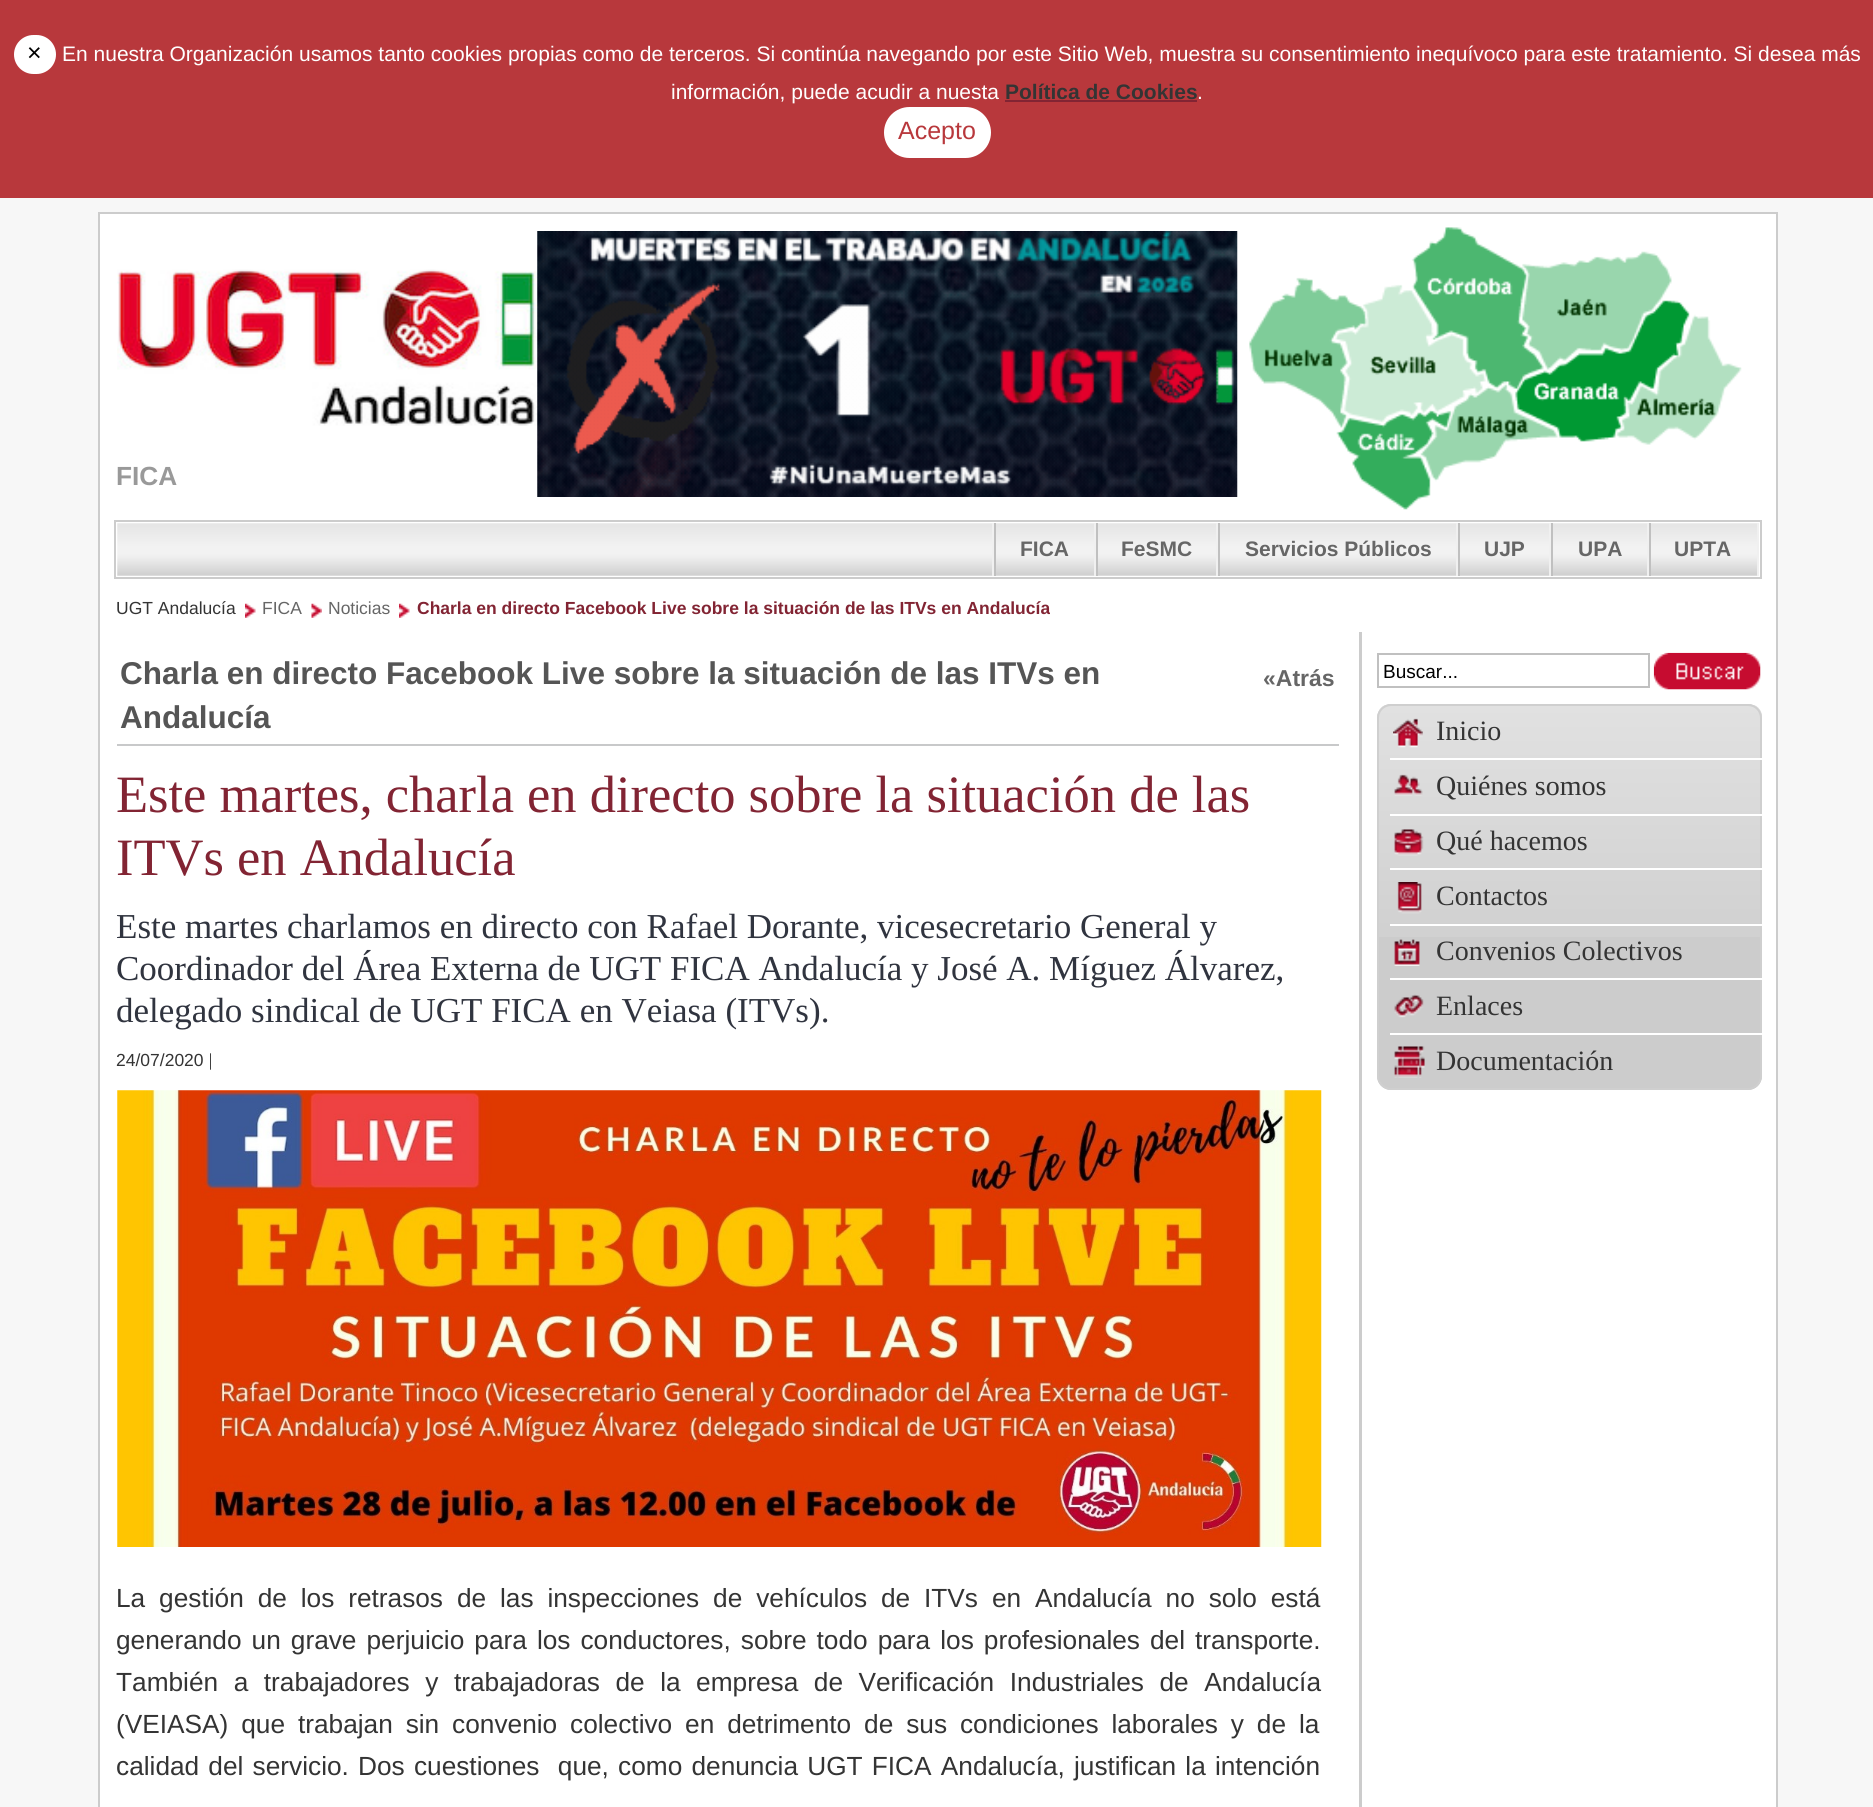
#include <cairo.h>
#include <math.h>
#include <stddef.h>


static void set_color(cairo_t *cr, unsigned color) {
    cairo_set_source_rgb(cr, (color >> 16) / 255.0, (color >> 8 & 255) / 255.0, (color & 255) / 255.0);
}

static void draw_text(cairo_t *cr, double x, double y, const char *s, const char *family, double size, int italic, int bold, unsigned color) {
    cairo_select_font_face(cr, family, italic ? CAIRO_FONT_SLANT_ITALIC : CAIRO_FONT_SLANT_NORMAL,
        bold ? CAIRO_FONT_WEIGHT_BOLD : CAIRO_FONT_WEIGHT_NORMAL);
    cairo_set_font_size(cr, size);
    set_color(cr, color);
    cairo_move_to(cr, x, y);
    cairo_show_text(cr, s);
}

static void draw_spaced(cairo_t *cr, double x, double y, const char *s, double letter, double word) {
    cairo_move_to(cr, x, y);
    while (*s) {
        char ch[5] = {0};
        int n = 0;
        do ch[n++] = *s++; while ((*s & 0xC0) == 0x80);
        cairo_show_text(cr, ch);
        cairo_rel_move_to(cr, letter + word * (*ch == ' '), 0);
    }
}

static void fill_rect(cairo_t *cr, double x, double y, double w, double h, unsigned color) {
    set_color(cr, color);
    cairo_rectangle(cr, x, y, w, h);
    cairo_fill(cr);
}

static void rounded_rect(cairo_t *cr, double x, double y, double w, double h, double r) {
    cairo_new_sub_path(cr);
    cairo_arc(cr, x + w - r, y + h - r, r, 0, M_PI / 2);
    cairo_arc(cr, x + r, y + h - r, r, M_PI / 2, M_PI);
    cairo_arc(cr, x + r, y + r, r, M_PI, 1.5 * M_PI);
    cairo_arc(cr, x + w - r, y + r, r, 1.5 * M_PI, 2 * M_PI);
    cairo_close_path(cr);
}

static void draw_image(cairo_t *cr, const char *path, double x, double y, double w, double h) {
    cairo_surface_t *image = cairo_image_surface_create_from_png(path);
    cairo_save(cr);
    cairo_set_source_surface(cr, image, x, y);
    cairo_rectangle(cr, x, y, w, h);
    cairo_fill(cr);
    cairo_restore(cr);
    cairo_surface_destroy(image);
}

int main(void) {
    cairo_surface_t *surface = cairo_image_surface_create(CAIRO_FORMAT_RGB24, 1873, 1807);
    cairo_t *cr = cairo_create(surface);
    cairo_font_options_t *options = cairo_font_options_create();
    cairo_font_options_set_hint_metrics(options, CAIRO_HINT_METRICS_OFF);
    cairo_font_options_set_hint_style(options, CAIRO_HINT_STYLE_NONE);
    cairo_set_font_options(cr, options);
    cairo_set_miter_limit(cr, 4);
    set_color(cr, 0xF7F7F7);
    cairo_paint(cr);
    fill_rect(cr, 0, 0, 1873, 198, 0xB8383C);
    set_color(cr, 0xFFFFFF);
    rounded_rect(cr, 14, 35, 42, 39, 19.5);
    cairo_fill(cr);
    draw_text(cr, 27, 61, "×", "Liberation Sans", 25, 0, 0, 0x000000);
    draw_text(cr, 62, 61, "En nuestra Organización usamos tanto cookies propias como de terceros. Si continúa navegando por este Sitio Web, muestra su consentimiento inequívoco para este tratamiento. Si desea más", "Liberation Sans", 21, 0, 0, 0xFFFFFF);
    draw_text(cr, 671, 99, "información, puede acudir a nuesta", "Liberation Sans", 21, 0, 0, 0xFFFFFF);
    draw_text(cr, 1005, 99, "Política de Cookies", "Liberation Sans", 21, 0, 1, 0x343434);
    fill_rect(cr, 1005, 100, 192, 2, 0x822433);
    draw_text(cr, 1197, 99, ".", "Liberation Sans", 21, 0, 0, 0xFFFFFF);
    rounded_rect(cr, 884, 107, 107, 51, 25.5);
    cairo_fill(cr);
    draw_text(cr, 898, 139, "Acepto", "Liberation Sans", 25, 0, 0, 0xB8383C);
    fill_rect(cr, 100, 632, 1676, 1175, 0xFFFFFF);
    fill_rect(cr, 1359, 631, 3, 1176, 0xCCCCCC);
    fill_rect(cr, 100, 214, 1676, 418, 0xFFFFFF);
    fill_rect(cr, 98, 212, 1680, 2, 0xCCCCCC);
    fill_rect(cr, 1776, 212, 2, 420, 0xCCCCCC);
    fill_rect(cr, 98, 212, 2, 420, 0xCCCCCC);
    draw_image(cr, "assets/img1.png", 117, 269, 421, 157);
    draw_text(cr, 116, 485, "FICA", "Liberation Sans", 26.25, 0, 1, 0x999999);
    draw_image(cr, "assets/img2.png", 537, 231, 701, 266);
    draw_image(cr, "assets/img3.png", 1249, 227, 493, 283);
    cairo_rectangle(cr, 115, 521, 1646, 57);
    set_color(cr, 0xCCCCCC);
    cairo_stroke(cr);
    draw_image(cr, "assets/img4.png", 117, 523, 1640, 53);
    fill_rect(cr, 992, 523, 2, 53, 0xF0F0F0);
    fill_rect(cr, 1094, 523, 2, 53, 0xF0F0F0);
    fill_rect(cr, 994, 523, 2, 53, 0xC0C0C0);
    draw_text(cr, 1020, 556, "FICA", "Liberation Sans", 21, 0, 1, 0x666666);
    fill_rect(cr, 1216, 523, 2, 53, 0xF0F0F0);
    fill_rect(cr, 1096, 523, 2, 53, 0xC0C0C0);
    draw_text(cr, 1121, 556, "FeSMC", "Liberation Sans", 21, 0, 1, 0x666666);
    fill_rect(cr, 1456, 523, 2, 53, 0xF0F0F0);
    fill_rect(cr, 1218, 523, 2, 53, 0xC0C0C0);
    draw_text(cr, 1245, 556, "Servicios Públicos", "Liberation Sans", 21, 0, 1, 0x666666);
    fill_rect(cr, 1549, 523, 2, 53, 0xF0F0F0);
    fill_rect(cr, 1458, 523, 2, 53, 0xC0C0C0);
    draw_text(cr, 1484, 556, "UJP", "Liberation Sans", 21, 0, 1, 0x666666);
    fill_rect(cr, 1647, 523, 2, 53, 0xF0F0F0);
    fill_rect(cr, 1551, 523, 2, 53, 0xC0C0C0);
    draw_text(cr, 1578, 556, "UPA", "Liberation Sans", 21, 0, 1, 0x666666);
    fill_rect(cr, 1757, 523, 2, 53, 0xF0F0F0);
    fill_rect(cr, 1649, 523, 2, 53, 0xC0C0C0);
    draw_text(cr, 1674, 556, "UPTA", "Liberation Sans", 21, 0, 1, 0x666666);
    draw_text(cr, 116, 614, "UGT Andalucía", "Liberation Sans", 17.5, 0, 0, 0x343434);
    draw_image(cr, "assets/img5.png", 245, 603, 11, 15);
    draw_text(cr, 262, 614, "FICA", "Liberation Sans", 17.5, 0, 0, 0x666666);
    draw_image(cr, "assets/img6.png", 311, 603, 11, 15);
    draw_text(cr, 328, 614, "Noticias", "Liberation Sans", 17.5, 0, 0, 0x666666);
    draw_image(cr, "assets/img7.png", 399, 603, 11, 15);
    draw_text(cr, 417, 614, "Charla en directo Facebook Live sobre la situación de las ITVs en Andalucía", "Liberation Sans", 17.5, 0, 1, 0x822433);
    fill_rect(cr, 1776, 632, 2, 1175, 0xCCCCCC);
    fill_rect(cr, 98, 632, 2, 1175, 0xCCCCCC);
    fill_rect(cr, 117, 744, 1222, 2, 0xC8C9CA);
    draw_text(cr, 120, 684, "Charla en directo Facebook Live sobre la situación de las ITVs en", "Liberation Sans", 31.5, 0, 1, 0x555555);
    draw_text(cr, 120, 728, "Andalucía", "Liberation Sans", 31.5, 0, 1, 0x555555);
    draw_text(cr, 1263, 686, "«Atrás", "Liberation Sans", 23, 0, 1, 0x666666);
    draw_text(cr, 116, 812, "Este martes, charla en directo sobre la situación de las", "Liberation Serif", 52.5, 0, 0, 0x822433);
    draw_text(cr, 116, 875, "ITVs en Andalucía", "Liberation Serif", 52.5, 0, 0, 0x822433);
    draw_text(cr, 116, 938, "Este martes charlamos en directo con Rafael Dorante, vicesecretario General y", "Liberation Serif", 35, 0, 0, 0x30343F);
    draw_text(cr, 116, 980, "Coordinador del Área Externa de UGT FICA Andalucía y José A. Míguez Álvarez,", "Liberation Serif", 35, 0, 0, 0x30343F);
    draw_text(cr, 116, 1022, "delegado sindical de UGT FICA en Veiasa (ITVs).", "Liberation Serif", 35, 0, 0, 0x30343F);
    draw_text(cr, 116, 1066, "24/07/2020 |", "Liberation Sans", 17.5, 0, 0, 0x343434);
    draw_image(cr, "assets/img8.png", 117, 1090, 1205, 457);
    cairo_set_font_size(cr, 26.25);
    draw_spaced(cr, 116, 1607, "La gestión de los retrasos de las inspecciones de vehículos de ITVs en Andalucía no solo está", 0, 6.6);
    draw_spaced(cr, 116, 1649, "generando un grave perjuicio para los conductores, sobre todo para los profesionales del transporte.", 0, 2.75);
    draw_spaced(cr, 116, 1691, "También a trabajadores y trabajadoras de la empresa de Verificación Industriales de Andalucía", 0, 8.25);
    draw_spaced(cr, 116, 1733, "(VEIASA) que trabajan sin convenio colectivo en detrimento de sus condiciones laborales y de la", 0, 5.6);
    draw_spaced(cr, 116, 1775, "calidad del servicio. Dos cuestiones  que, como denuncia UGT FICA Andalucía, justifican la intención", 0, 1.9);
    cairo_rectangle(cr, 1378, 654, 271, 33);
    set_color(cr, 0xC0C0C0);
    cairo_stroke(cr);
    draw_text(cr, 1383, 678, "Buscar...", "Liberation Sans", 19, 0, 0, 0x000000);
    draw_image(cr, "assets/img9.png", 1653, 652, 108, 38);
    set_color(cr, 0xCCCCCC);
    rounded_rect(cr, 1377, 704, 385, 386, 14);
    cairo_fill(cr);
    draw_image(cr, "assets/img10.png", 1377, 705, 385, 232);
    rounded_rect(cr, 1378, 705, 383, 384, 13);
    set_color(cr, 0xCFCFCF);
    cairo_stroke(cr);
    draw_image(cr, "assets/img11.png", 1393, 718, 30, 30);
    draw_text(cr, 1436, 740, "Inicio", "Liberation Serif", 28, 0, 0, 0x343434);
    fill_rect(cr, 1390, 758, 372, 2, 0xFFFFFF);
    draw_image(cr, "assets/img12.png", 1394, 774, 29, 22);
    draw_text(cr, 1436, 795, "Quiénes somos", "Liberation Serif", 28, 0, 0, 0x343434);
    fill_rect(cr, 1390, 814, 372, 2, 0xFFFFFF);
    draw_image(cr, "assets/img13.png", 1394, 829, 30, 27);
    draw_text(cr, 1436, 850, "Qué hacemos", "Liberation Serif", 28, 0, 0, 0x343434);
    fill_rect(cr, 1390, 868, 372, 2, 0xFFFFFF);
    draw_image(cr, "assets/img14.png", 1397, 882, 25, 32);
    draw_text(cr, 1436, 905, "Contactos", "Liberation Serif", 28, 0, 0, 0x343434);
    fill_rect(cr, 1390, 924, 372, 2, 0xFFFFFF);
    draw_image(cr, "assets/img15.png", 1394, 939, 26, 27);
    draw_text(cr, 1436, 960, "Convenios Colectivos", "Liberation Serif", 28, 0, 0, 0x343434);
    fill_rect(cr, 1390, 978, 372, 2, 0xFFFFFF);
    draw_image(cr, "assets/img16.png", 1394, 994, 30, 24);
    draw_text(cr, 1436, 1015, "Enlaces", "Liberation Serif", 28, 0, 0, 0x343434);
    fill_rect(cr, 1390, 1033, 372, 2, 0xFFFFFF);
    draw_image(cr, "assets/img17.png", 1394, 1046, 31, 32);
    draw_text(cr, 1436, 1070, "Documentación", "Liberation Serif", 28, 0, 0, 0x343434);
    cairo_surface_write_to_png(surface, "output.png");
    cairo_font_options_destroy(options);
    cairo_destroy(cr);
    cairo_surface_destroy(surface);
    return 0;
}
